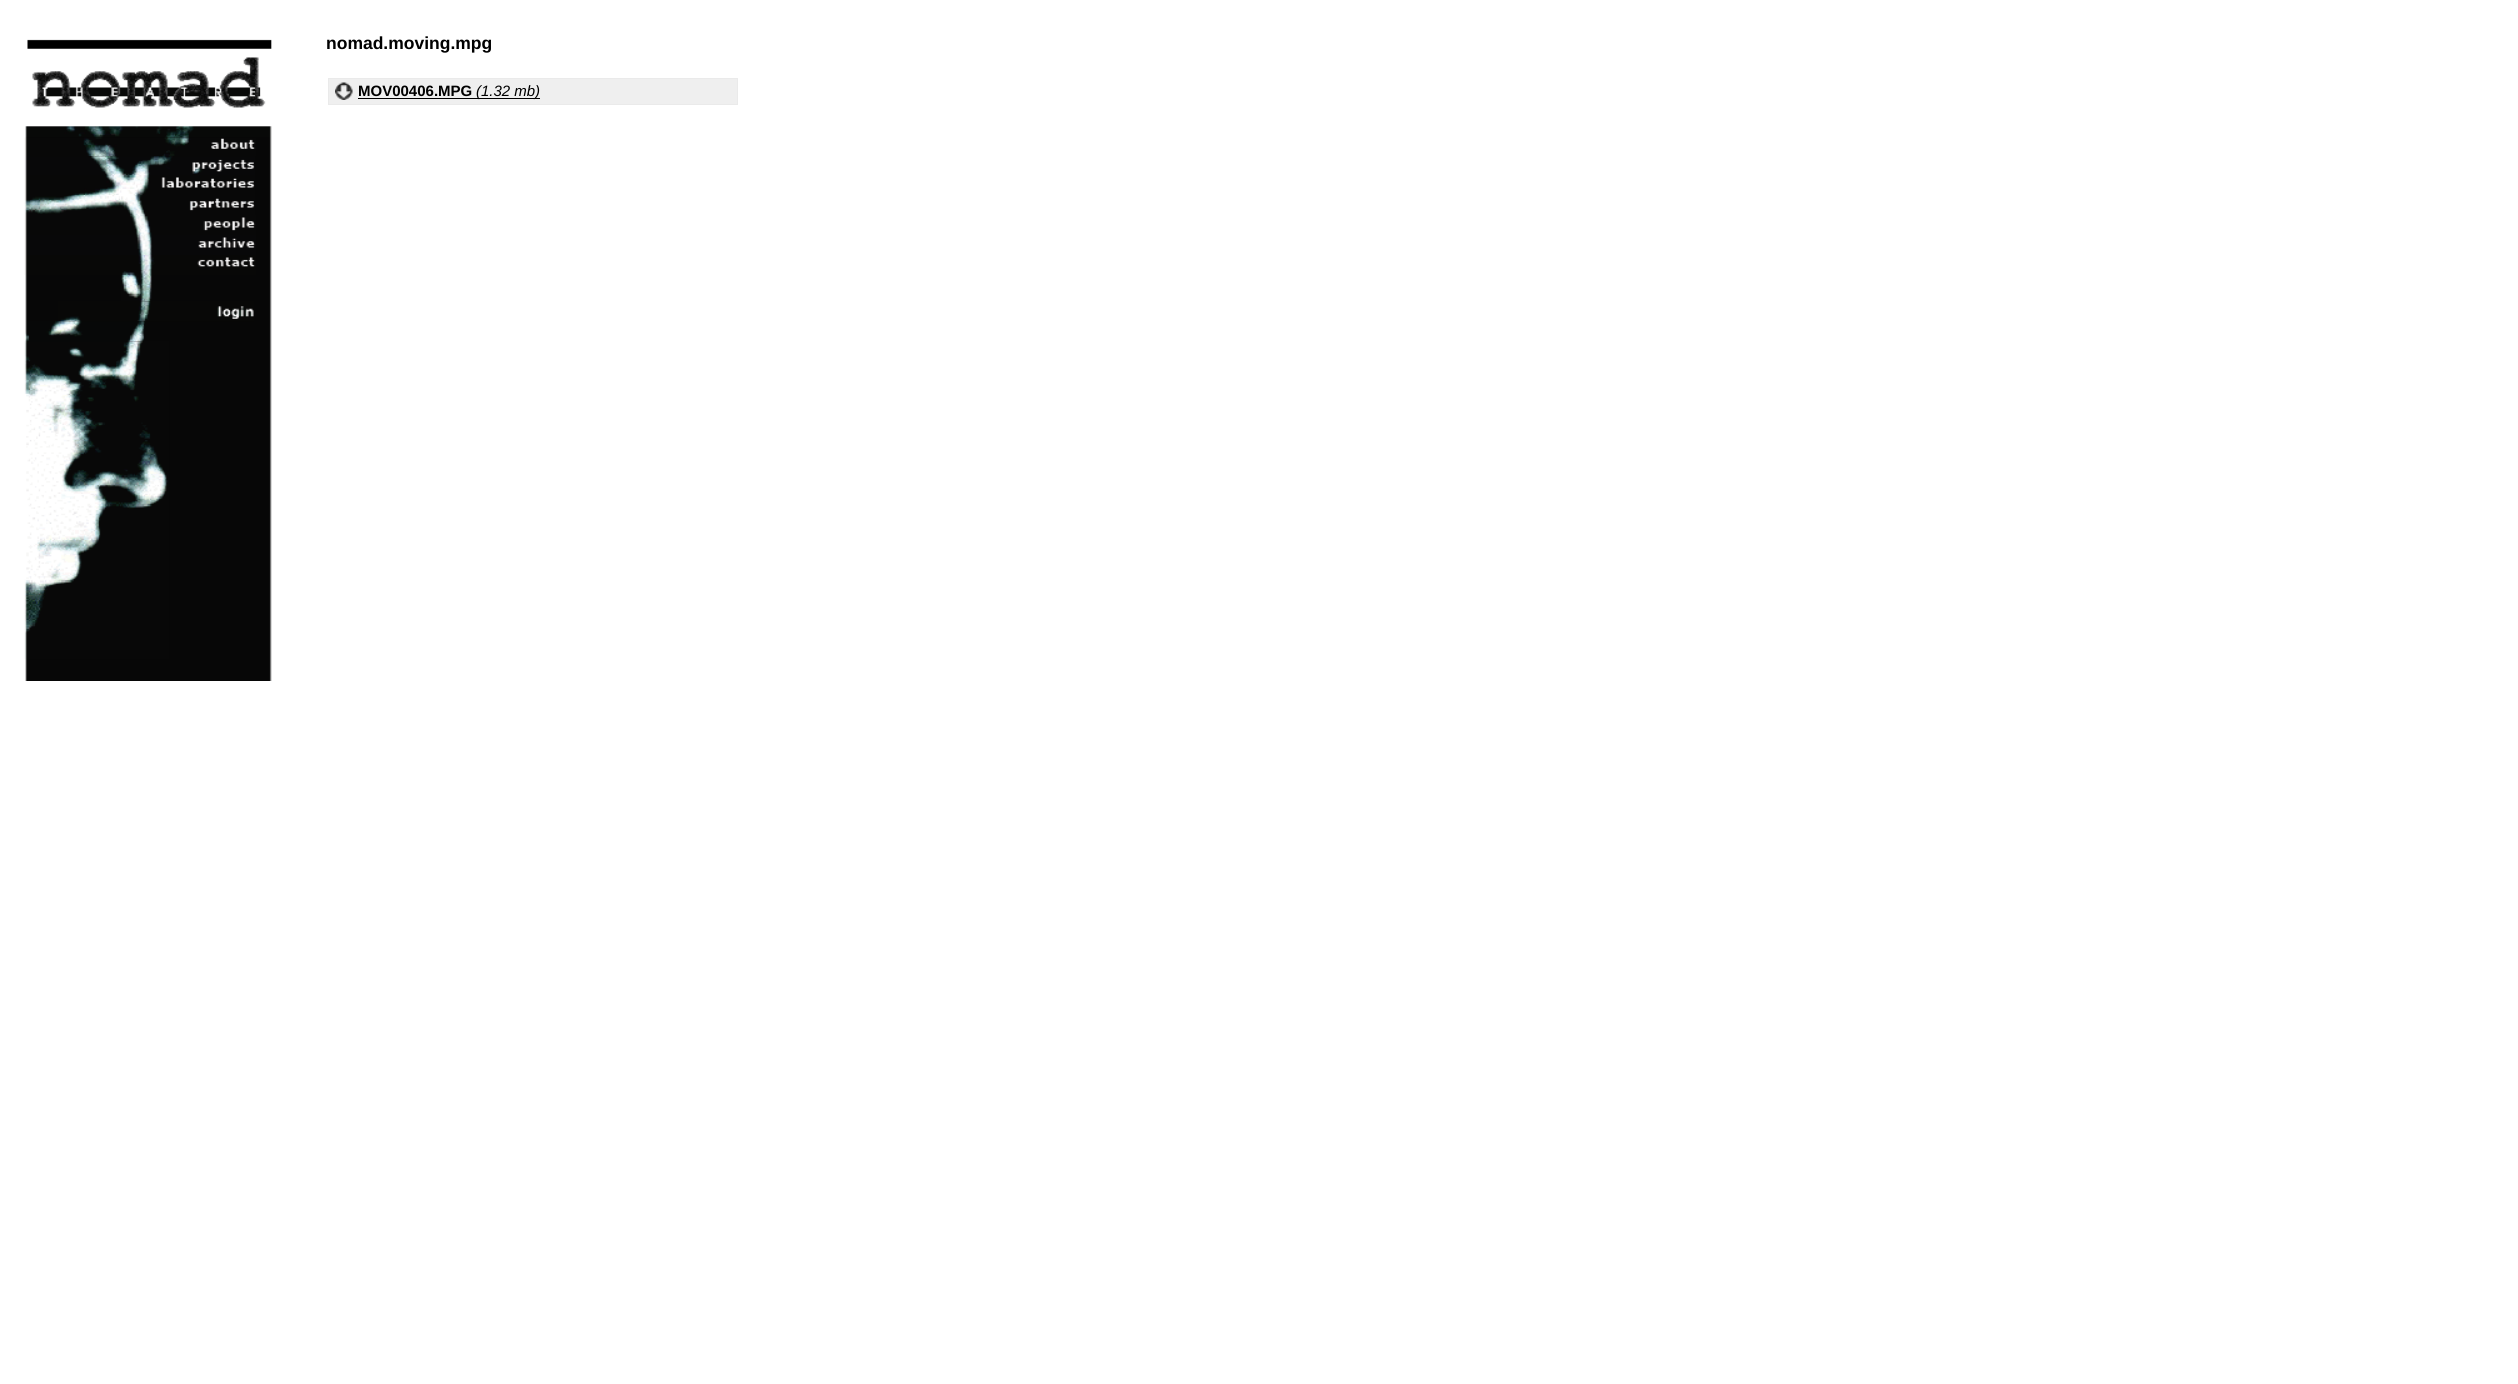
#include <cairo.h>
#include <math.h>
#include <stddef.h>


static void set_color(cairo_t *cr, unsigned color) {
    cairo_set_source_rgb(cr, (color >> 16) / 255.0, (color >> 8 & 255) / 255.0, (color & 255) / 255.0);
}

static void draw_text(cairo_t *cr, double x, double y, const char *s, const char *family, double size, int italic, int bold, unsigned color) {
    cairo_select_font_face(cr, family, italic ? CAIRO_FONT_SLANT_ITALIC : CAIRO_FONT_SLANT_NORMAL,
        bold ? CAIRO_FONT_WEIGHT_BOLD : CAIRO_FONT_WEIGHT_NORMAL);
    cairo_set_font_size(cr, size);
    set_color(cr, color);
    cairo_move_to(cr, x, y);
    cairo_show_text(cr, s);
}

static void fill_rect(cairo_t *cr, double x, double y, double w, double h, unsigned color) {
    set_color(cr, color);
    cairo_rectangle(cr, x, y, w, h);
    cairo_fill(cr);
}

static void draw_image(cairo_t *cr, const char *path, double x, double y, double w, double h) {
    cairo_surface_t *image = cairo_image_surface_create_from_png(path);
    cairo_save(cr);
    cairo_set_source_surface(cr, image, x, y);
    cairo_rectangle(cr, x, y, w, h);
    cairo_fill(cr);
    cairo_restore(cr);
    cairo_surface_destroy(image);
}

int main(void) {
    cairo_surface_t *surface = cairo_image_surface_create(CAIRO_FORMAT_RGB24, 2518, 1384);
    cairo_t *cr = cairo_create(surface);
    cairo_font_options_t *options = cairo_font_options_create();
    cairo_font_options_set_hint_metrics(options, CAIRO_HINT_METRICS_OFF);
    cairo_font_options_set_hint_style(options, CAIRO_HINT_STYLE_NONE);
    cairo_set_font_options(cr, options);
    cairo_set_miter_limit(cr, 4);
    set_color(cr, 0xFFFFFF);
    cairo_paint(cr);
    draw_image(cr, "assets/img1.png", 25, 137, 247, 544);
    draw_image(cr, "assets/img2.png", 25, 0, 247, 138);
    draw_image(cr, "assets/img3.png", 24, 137, 232, 20);
    draw_image(cr, "assets/img4.png", 24, 156, 231, 19);
    draw_image(cr, "assets/img5.png", 24, 175, 231, 20);
    draw_image(cr, "assets/img6.png", 24, 195, 231, 20);
    draw_image(cr, "assets/img7.png", 24, 215, 232, 20);
    draw_image(cr, "assets/img8.png", 24, 235, 232, 20);
    draw_image(cr, "assets/img9.png", 24, 255, 232, 20);
    draw_image(cr, "assets/img10.png", 121, 275, 31, 27);
    draw_image(cr, "assets/img11.png", 58, 301, 196, 21);
    draw_image(cr, "assets/img12.png", 25, 321, 120, 21);
    draw_image(cr, "assets/img13.png", 24, 341, 145, 318);
    draw_text(cr, 326, 49, "nomad.moving.mpg", "Liberation Sans", 17.5, 0, 1, 0x000000);
    fill_rect(cr, 329, 79, 408, 25, 0xEFEFEF);
    draw_image(cr, "assets/img14.png", 335, 82, 18, 18);
    cairo_rectangle(cr, 328.5, 78.5, 409, 26);
    set_color(cr, 0xEAEAEA);
    cairo_set_line_width(cr, 1);
    cairo_stroke(cr);
    draw_text(cr, 358, 96, "MOV00406.MPG", "Liberation Sans", 15, 0, 1, 0x000000);
    fill_rect(cr, 358, 98, 123, 1, 0x000000);
    draw_text(cr, 476, 96, "(1.32 mb", "Liberation Sans", 15, 1, 0, 0x000000);
    fill_rect(cr, 481, 98, 59, 1, 0x000000);
    draw_text(cr, 535, 96, ")", "Liberation Sans", 15, 1, 0, 0x000000);
    cairo_surface_write_to_png(surface, "output.png");
    cairo_font_options_destroy(options);
    cairo_destroy(cr);
    cairo_surface_destroy(surface);
    return 0;
}
